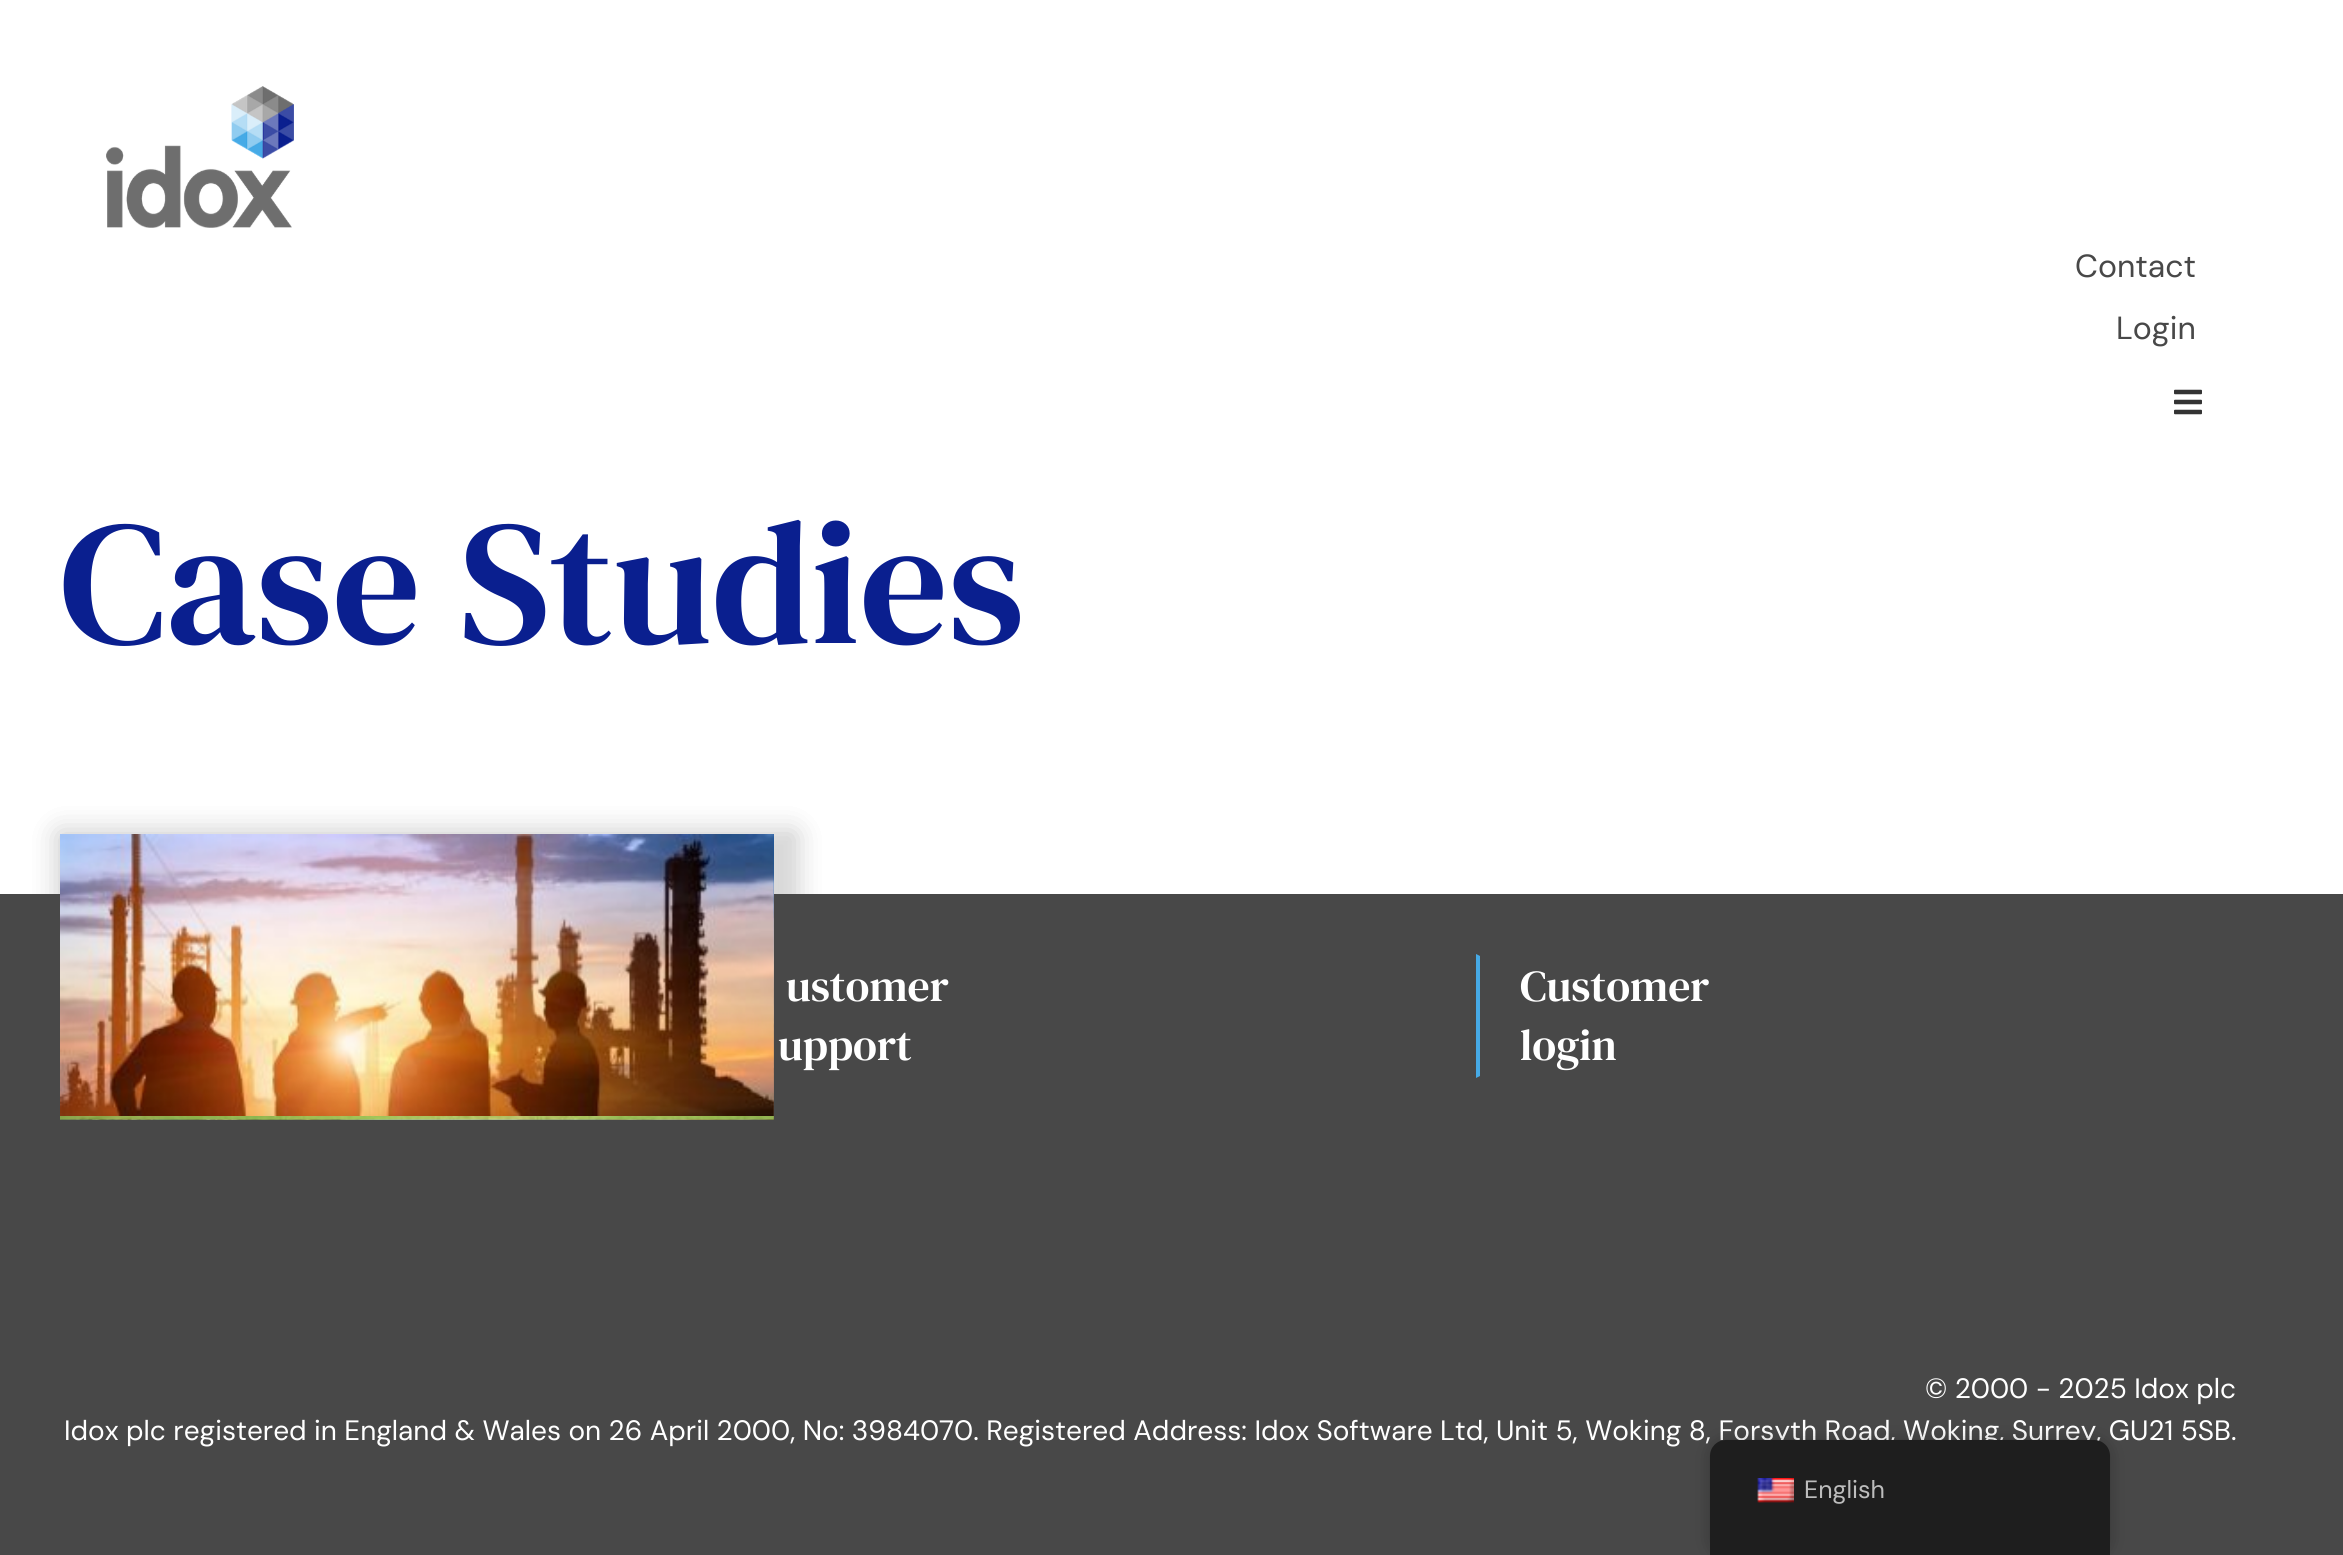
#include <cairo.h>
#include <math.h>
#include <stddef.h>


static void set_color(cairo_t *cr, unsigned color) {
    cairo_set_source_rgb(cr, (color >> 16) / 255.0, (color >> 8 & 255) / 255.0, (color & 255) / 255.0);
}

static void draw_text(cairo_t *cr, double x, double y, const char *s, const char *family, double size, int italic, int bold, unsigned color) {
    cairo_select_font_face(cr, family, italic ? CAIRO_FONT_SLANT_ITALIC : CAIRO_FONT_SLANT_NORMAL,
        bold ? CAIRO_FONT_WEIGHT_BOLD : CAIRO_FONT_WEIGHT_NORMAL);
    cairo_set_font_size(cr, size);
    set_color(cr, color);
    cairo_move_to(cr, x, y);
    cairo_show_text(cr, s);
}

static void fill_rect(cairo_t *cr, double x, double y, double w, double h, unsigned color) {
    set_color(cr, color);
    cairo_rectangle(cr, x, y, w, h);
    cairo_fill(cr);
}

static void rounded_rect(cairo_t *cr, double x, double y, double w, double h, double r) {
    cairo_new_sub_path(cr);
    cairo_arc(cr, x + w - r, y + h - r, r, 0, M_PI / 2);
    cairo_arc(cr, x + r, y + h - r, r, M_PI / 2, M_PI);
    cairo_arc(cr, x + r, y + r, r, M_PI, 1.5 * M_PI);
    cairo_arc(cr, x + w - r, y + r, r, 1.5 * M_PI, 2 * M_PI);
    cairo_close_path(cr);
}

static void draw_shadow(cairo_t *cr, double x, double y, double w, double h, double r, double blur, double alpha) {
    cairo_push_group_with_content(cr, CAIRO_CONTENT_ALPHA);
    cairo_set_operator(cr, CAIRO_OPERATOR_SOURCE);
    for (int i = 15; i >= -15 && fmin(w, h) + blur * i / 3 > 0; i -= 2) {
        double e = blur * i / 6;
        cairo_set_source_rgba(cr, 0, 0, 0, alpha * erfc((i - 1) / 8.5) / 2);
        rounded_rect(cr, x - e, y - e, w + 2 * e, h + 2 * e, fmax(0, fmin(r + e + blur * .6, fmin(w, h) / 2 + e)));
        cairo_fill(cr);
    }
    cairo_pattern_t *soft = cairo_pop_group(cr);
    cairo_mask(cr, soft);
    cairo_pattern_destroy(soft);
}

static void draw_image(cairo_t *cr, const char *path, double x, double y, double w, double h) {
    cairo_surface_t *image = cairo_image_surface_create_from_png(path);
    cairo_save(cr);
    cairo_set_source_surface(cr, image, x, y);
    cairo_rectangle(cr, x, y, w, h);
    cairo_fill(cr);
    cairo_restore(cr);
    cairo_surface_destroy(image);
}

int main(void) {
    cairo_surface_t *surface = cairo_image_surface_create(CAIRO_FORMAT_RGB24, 2343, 1555);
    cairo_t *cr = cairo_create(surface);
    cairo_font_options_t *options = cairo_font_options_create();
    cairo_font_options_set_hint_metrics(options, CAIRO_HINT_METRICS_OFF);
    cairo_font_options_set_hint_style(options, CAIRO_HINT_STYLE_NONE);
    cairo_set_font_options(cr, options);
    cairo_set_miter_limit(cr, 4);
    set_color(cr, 0xFFFFFF);
    cairo_paint(cr);
    draw_image(cr, "assets/img1.png", 106, 86, 188, 142);
    draw_text(cr, 2075, 277, "Contact", "DM Sans", 32, 0, 0, 0x484848);
    draw_text(cr, 2116, 339, "Login", "DM Sans", 32, 0, 0, 0x484848);
    draw_image(cr, "assets/img2.png", 2174, 389, 28, 26);
    draw_text(cr, 60, 643, "Case Studies", "DM Serif Text", 175.5, 0, 0, 0x0A1F8F);
    set_color(cr, 0xD8D8D8);
    draw_shadow(cr, 60, 834, 734, 412, 0, 13, 1);
    draw_shadow(cr, 60, 834, 734, 450, 0, 13, 1);
    fill_rect(cr, 0, 894, 2343, 661, 0x484848);
    draw_image(cr, "assets/img3.png", 60, 834, 714, 286);
    draw_image(cr, "assets/img4.png", 60, 834, 714, 286);
    draw_image(cr, "assets/img5.png", 60, 834, 714, 286);
    draw_image(cr, "assets/img6.png", 60, 834, 714, 282);
    draw_image(cr, "assets/img7.png", 60, 834, 714, 282);
    draw_image(cr, "assets/img8.png", 60, 834, 714, 282);
    draw_image(cr, "assets/img9.png", 60, 834, 714, 282);
    draw_image(cr, "assets/img10.png", 60, 834, 714, 282);
    draw_text(cr, 786, 1001, "ustomer", "DM Serif Text", 44, 0, 0, 0xFFFFFF);
    draw_text(cr, 778, 1060, "upport", "DM Serif Text", 44, 0, 0, 0xFFFFFF);
    set_color(cr, 0x46AAE6);
    cairo_new_path(cr);
    cairo_move_to(cr, 1476, 1078);
    cairo_line_to(cr, 1476, 954);
    cairo_line_to(cr, 1480, 956);
    cairo_line_to(cr, 1480, 1076);
    cairo_close_path(cr);
    cairo_fill(cr);
    draw_text(cr, 1520, 1001, "Customer", "DM Serif Text", 44, 0, 0, 0xFFFFFF);
    draw_text(cr, 1520, 1060, "login", "DM Serif Text", 44, 0, 0, 0xFFFFFF);
    draw_text(cr, 1925, 1398, "© 2000 - 2025 Idox plc", "DM Sans", 28, 0, 0, 0xFFFFFF);
    draw_text(cr, 64, 1440, "Idox plc registered in England & Wales on 26 April 2000, No: 3984070. Registered Address: Idox Software Ltd, Unit 5, Woking 8, Forsyth Road, Woking, Surrey, GU21 5SB.", "DM Sans", 28, 0, 0, 0xFFFFFF);
    set_color(cr, 0x000000);
    draw_shadow(cr, 1710, 1440, 400, 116, 16, 8, 0.25);
    set_color(cr, 0x1E1E1E);
    cairo_new_path(cr);
    cairo_move_to(cr, 1726, 1440);
    cairo_line_to(cr, 2094, 1440);
    cairo_curve_to(cr, 2103, 1440, 2110, 1447, 2110, 1456);
    cairo_line_to(cr, 2110, 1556);
    cairo_line_to(cr, 1710, 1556);
    cairo_line_to(cr, 1710, 1456);
    cairo_curve_to(cr, 1710, 1447, 1717, 1440, 1726, 1440);
    cairo_close_path(cr);
    cairo_fill(cr);
    draw_image(cr, "assets/img11.png", 1757, 1478, 37, 25);
    draw_text(cr, 1804, 1498, "English", "DM Sans", 25, 0, 0, 0xBDBDBD);
    cairo_surface_write_to_png(surface, "output.png");
    cairo_font_options_destroy(options);
    cairo_destroy(cr);
    cairo_surface_destroy(surface);
    return 0;
}
